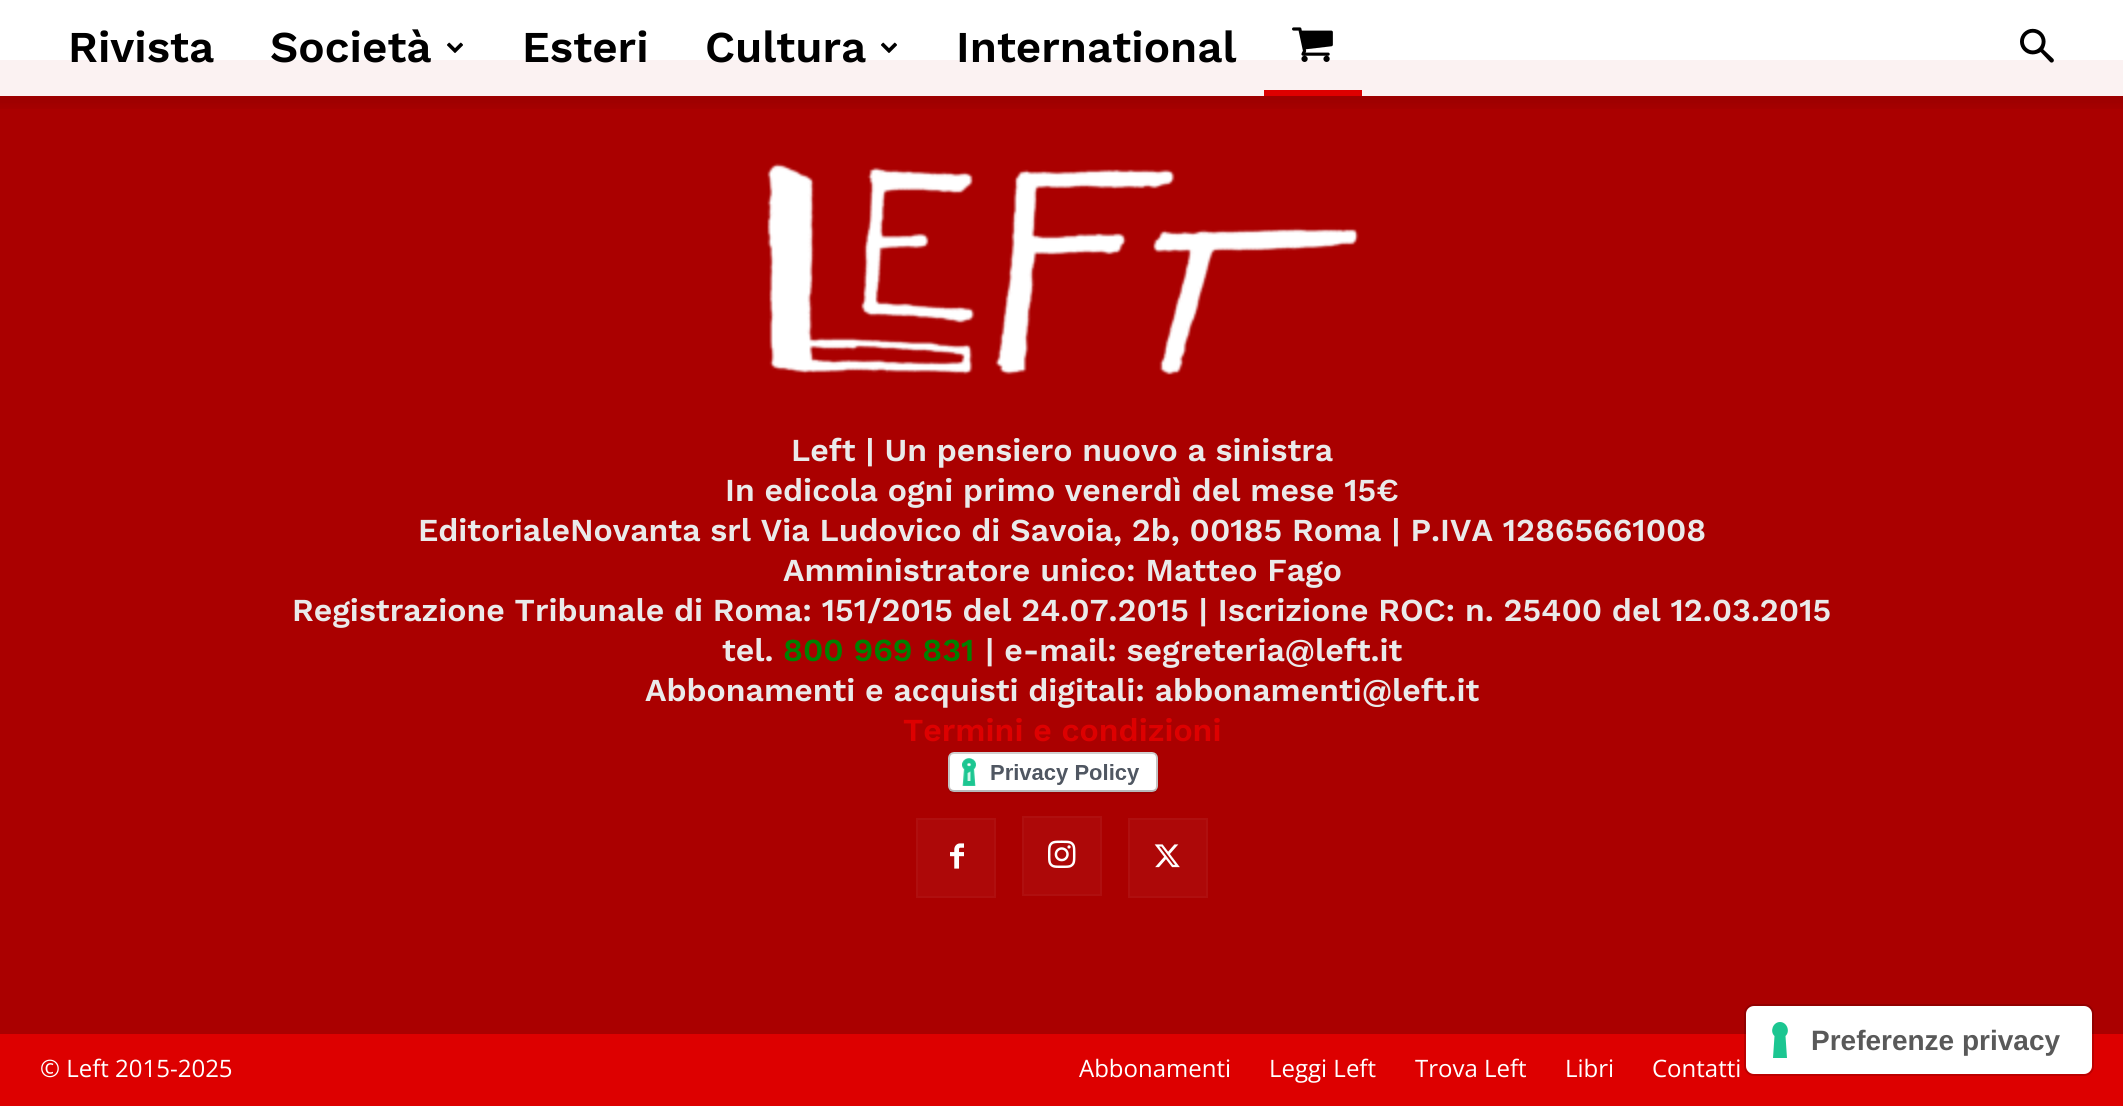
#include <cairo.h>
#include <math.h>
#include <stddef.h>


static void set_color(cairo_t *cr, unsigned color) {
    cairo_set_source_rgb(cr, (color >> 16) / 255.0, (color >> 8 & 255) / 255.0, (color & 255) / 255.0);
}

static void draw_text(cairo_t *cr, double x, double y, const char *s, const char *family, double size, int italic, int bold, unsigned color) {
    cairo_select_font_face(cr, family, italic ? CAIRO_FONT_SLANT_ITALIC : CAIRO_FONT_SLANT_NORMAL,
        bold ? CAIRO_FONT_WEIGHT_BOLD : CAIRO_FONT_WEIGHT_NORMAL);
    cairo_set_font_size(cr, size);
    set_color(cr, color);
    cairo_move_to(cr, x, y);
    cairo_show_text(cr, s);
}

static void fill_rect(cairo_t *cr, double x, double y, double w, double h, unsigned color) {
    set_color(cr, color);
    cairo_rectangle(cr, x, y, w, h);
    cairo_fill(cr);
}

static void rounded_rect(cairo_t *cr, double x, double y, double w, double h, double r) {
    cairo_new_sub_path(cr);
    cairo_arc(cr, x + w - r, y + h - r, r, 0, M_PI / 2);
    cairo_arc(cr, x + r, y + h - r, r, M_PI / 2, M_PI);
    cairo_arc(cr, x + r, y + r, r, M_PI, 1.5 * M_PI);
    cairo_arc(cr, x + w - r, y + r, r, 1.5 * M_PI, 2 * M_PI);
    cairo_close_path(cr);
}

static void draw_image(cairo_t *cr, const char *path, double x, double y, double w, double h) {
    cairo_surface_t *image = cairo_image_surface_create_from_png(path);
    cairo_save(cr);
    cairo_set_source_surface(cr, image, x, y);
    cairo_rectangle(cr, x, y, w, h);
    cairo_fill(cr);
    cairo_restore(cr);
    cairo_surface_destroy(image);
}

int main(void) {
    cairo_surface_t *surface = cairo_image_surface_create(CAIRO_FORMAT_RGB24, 2123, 1106);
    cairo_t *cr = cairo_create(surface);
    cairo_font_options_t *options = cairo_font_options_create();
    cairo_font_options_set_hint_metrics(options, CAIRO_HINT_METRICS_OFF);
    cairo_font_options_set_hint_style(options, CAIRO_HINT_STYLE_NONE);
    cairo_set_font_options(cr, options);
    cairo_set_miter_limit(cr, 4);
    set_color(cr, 0xFFFFFF);
    cairo_paint(cr);
    fill_rect(cr, 0, 60, 2123, 36, 0xFBF2F2);
    draw_text(cr, 68, 62, "Rivista", "Work Sans SemiBold", 44, 0, 0, 0x000000);
    draw_text(cr, 270, 62, "Società", "Work Sans SemiBold", 44, 0, 0, 0x000000);
    draw_image(cr, "assets/img1.png", 447, 42, 16, 11);
    draw_text(cr, 522, 62, "Esteri", "Work Sans SemiBold", 44, 0, 0, 0x000000);
    draw_text(cr, 705, 62, "Cultura", "Work Sans SemiBold", 44, 0, 0, 0x000000);
    draw_image(cr, "assets/img1.png", 881, 42, 16, 11);
    draw_text(cr, 956, 62, "International", "Work Sans SemiBold", 44, 0, 0, 0x000000);
    draw_image(cr, "assets/img2.png", 1292, 27, 41, 35);
    fill_rect(cr, 1264, 90, 98, 6, 0xDD0000);
    draw_image(cr, "assets/img3.png", 2020, 28, 34, 35);
    fill_rect(cr, 0, 96, 2123, 938, 0xAA0000);
    draw_image(cr, "assets/img4.png", 0, 96, 2123, 13);
    draw_image(cr, "assets/img5.png", 767, 163, 592, 212);
    draw_text(cr, 791, 461, "Left | Un pensiero nuovo a sinistra", "Work Sans SemiBold", 32, 0, 0, 0xEAEAEA);
    draw_text(cr, 725, 501, "In edicola ogni primo venerdì del mese 15€", "Work Sans SemiBold", 32, 0, 0, 0xEAEAEA);
    draw_text(cr, 418, 541, "EditorialeNovanta srl Via Ludovico di Savoia, 2b, 00185 Roma | P.IVA 12865661008", "Work Sans SemiBold", 32, 0, 0, 0xEAEAEA);
    draw_text(cr, 783, 581, "Amministratore unico: Matteo Fago", "Work Sans SemiBold", 32, 0, 0, 0xEAEAEA);
    draw_text(cr, 292, 621, "Registrazione Tribunale di Roma: 151/2015 del 24.07.2015 | Iscrizione ROC: n. 25400 del 12.03.2015", "Work Sans SemiBold", 32, 0, 0, 0xEAEAEA);
    draw_text(cr, 722, 661, "tel.", "Work Sans SemiBold", 32, 0, 0, 0xEAEAEA);
    draw_text(cr, 783, 661, "800 969 831", "Work Sans SemiBold", 32, 0, 0, 0x008000);
    draw_text(cr, 985, 661, "| e-mail: segreteria@left.it", "Work Sans SemiBold", 32, 0, 0, 0xEAEAEA);
    draw_text(cr, 645, 701, "Abbonamenti e acquisti digitali: abbonamenti@left.it", "Work Sans SemiBold", 32, 0, 0, 0xEAEAEA);
    draw_text(cr, 903, 741, "Termini e condizioni", "Work Sans SemiBold", 32, 0, 0, 0xDD0000);
    draw_image(cr, "assets/img6.png", 948, 752, 210, 42);
    fill_rect(cr, 918, 820, 76, 76, 0xAD0808);
    draw_image(cr, "assets/img7.png", 950, 843, 14, 26);
    cairo_rectangle(cr, 917, 819, 78, 78);
    set_color(cr, 0xAF0F0F);
    cairo_stroke(cr);
    fill_rect(cr, 1024, 818, 76, 76, 0xAD0808);
    draw_image(cr, "assets/img8.png", 1048, 840, 28, 28);
    cairo_rectangle(cr, 1023, 817, 78, 78);
    set_color(cr, 0xAF0F0F);
    cairo_stroke(cr);
    fill_rect(cr, 1130, 820, 76, 76, 0xAD0808);
    draw_image(cr, "assets/img9.png", 1154, 844, 26, 24);
    cairo_rectangle(cr, 1129, 819, 78, 78);
    set_color(cr, 0xAF0F0F);
    cairo_stroke(cr);
    fill_rect(cr, 0, 1034, 2123, 72, 0xDD0000);
    draw_text(cr, 40, 1077, "© Left 2015-2025", "Open Sans", 24, 0, 0, 0xFFFFFF);
    draw_text(cr, 1079, 1077, "Abbonamenti", "Open Sans", 24, 0, 0, 0xFFFFFF);
    draw_text(cr, 1269, 1077, "Leggi Left", "Open Sans", 24, 0, 0, 0xFFFFFF);
    draw_text(cr, 1415, 1077, "Trova Left", "Open Sans", 24, 0, 0, 0xFFFFFF);
    draw_text(cr, 1565, 1077, "Libri", "Open Sans", 24, 0, 0, 0xFFFFFF);
    draw_text(cr, 1652, 1077, "Contatti", "Open Sans", 24, 0, 0, 0xFFFFFF);
    rounded_rect(cr, 1745, 1005, 348, 70, 9);
    cairo_set_source_rgba(cr, 0, 0, 0, 0.15);
    cairo_stroke(cr);
    set_color(cr, 0xFFFFFF);
    rounded_rect(cr, 1746, 1006, 346, 68, 8);
    cairo_fill(cr);
    set_color(cr, 0x1CC691);
    cairo_set_fill_rule(cr, CAIRO_FILL_RULE_EVEN_ODD);
    cairo_new_path(cr);
    cairo_move_to(cr, 1780, 1022);
    cairo_curve_to(cr, 1787, 1022, 1790.5, 1031.5, 1785.5, 1036);
    cairo_line_to(cr, 1787, 1058);
    cairo_line_to(cr, 1773, 1058);
    cairo_line_to(cr, 1774.5, 1036);
    cairo_curve_to(cr, 1769.5, 1031.5, 1773, 1022, 1780, 1022);
    cairo_close_path(cr);
    cairo_fill(cr);
    draw_text(cr, 1811, 1050, "Preferenze privacy", "Liberation Sans", 28, 0, 1, 0x595959);
    cairo_surface_write_to_png(surface, "output.png");
    cairo_font_options_destroy(options);
    cairo_destroy(cr);
    cairo_surface_destroy(surface);
    return 0;
}
